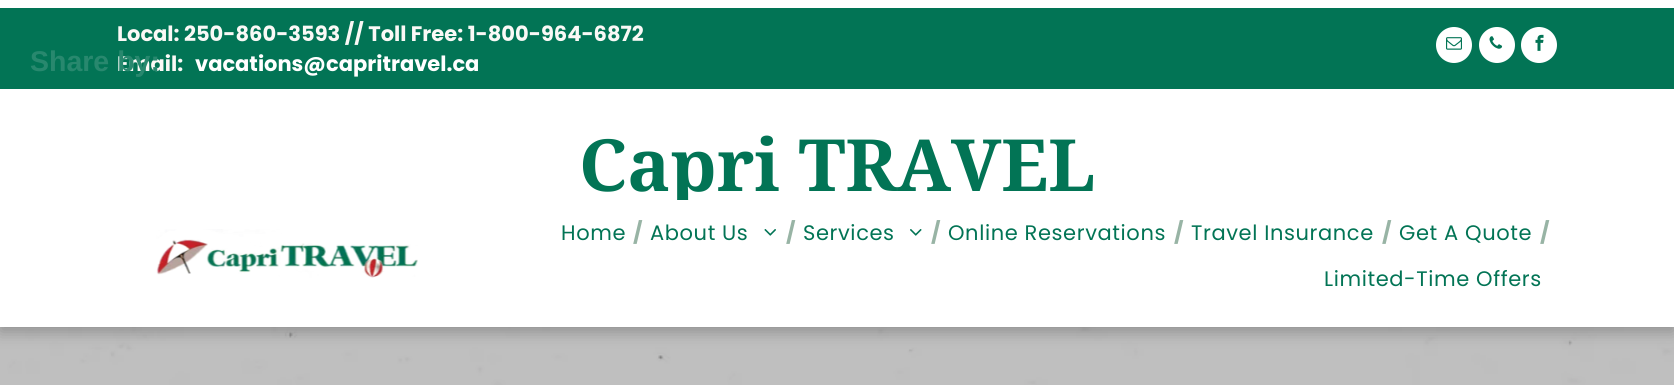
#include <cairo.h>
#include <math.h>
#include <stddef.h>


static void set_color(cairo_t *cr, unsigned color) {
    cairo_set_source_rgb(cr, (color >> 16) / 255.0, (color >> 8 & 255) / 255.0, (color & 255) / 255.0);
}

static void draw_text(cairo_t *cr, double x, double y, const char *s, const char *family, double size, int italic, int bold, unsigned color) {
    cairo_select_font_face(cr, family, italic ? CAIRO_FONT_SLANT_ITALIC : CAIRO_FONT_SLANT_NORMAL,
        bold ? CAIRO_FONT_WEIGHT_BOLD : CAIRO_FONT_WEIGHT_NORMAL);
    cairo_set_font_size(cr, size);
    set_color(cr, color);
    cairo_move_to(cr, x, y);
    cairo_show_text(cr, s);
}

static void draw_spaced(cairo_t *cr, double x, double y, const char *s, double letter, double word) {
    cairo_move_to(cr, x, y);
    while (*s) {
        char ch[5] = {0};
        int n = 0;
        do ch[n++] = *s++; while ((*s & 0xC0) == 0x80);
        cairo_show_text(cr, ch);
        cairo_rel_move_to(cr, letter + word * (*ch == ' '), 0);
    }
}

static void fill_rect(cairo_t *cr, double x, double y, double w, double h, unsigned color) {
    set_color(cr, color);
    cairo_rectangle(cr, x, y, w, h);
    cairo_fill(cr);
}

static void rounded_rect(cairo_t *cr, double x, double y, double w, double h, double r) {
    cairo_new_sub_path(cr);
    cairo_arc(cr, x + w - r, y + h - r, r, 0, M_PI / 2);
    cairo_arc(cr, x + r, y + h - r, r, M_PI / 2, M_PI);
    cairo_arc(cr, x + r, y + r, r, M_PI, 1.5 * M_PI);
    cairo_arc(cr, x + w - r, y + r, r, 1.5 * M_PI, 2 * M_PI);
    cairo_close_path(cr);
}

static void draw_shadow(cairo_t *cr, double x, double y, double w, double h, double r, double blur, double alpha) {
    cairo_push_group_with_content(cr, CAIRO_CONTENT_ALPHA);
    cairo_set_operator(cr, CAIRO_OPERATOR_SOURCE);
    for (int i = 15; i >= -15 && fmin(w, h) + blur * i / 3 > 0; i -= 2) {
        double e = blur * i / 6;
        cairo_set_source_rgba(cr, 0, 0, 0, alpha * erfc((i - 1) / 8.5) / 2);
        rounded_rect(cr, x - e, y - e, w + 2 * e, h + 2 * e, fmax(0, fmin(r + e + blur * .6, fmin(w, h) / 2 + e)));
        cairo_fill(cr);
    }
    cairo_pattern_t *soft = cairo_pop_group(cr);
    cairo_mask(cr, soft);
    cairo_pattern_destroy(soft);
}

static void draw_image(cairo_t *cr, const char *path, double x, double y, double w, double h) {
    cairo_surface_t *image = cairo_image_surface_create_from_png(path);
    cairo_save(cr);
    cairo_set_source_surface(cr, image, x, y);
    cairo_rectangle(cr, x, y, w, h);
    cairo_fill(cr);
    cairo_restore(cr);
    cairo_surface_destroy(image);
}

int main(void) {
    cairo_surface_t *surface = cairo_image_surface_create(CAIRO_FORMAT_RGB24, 1674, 385);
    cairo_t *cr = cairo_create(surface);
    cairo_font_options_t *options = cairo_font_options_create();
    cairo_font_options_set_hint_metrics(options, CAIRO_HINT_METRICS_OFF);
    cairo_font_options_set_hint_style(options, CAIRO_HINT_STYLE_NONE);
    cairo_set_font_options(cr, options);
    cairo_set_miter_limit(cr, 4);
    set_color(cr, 0xFFFFFF);
    cairo_paint(cr);
    draw_image(cr, "assets/img7.png", 0, 327, 1674, 58);
    set_color(cr, 0x000000);
    draw_shadow(cr, 0, 5, 1674, 327, 0, 8, 0.25);
    fill_rect(cr, 0, 0, 1674, 327, 0xFFFFFF);
    fill_rect(cr, 0, 8, 1674, 81, 0x027455);
    draw_text(cr, 117, 71, "Email:", "Poppins", 21, 0, 1, 0xFAF9F6);
    draw_text(cr, 30, 71, "Share by:", "Liberation Sans", 28.5, 0, 1, 0x28886E);
    draw_text(cr, 117, 41, "Local: 250-860-3593 // Toll Free: 1-800-964-6872", "Poppins", 21, 0, 1, 0xFAF9F6);
    draw_text(cr, 195, 71, "vacations@capritravel.ca", "Poppins", 21, 0, 1, 0xFFFFFF);
    cairo_new_path(cr);
    cairo_arc(cr, 1454, 45, 18, 0, 2 * M_PI);
    cairo_fill(cr);
    draw_image(cr, "assets/img1.png", 1446, 37, 16, 13);
    cairo_arc(cr, 1497, 45, 18, 0, 2 * M_PI);
    cairo_fill(cr);
    draw_image(cr, "assets/img2.png", 1489, 36, 14, 13);
    cairo_arc(cr, 1539, 45, 18, 0, 2 * M_PI);
    cairo_fill(cr);
    draw_image(cr, "assets/img3.png", 1535, 34, 9, 17);
    draw_text(cr, 579, 191, "Capri TRAVEL", "Noto Serif", 72, 0, 1, 0x027455);
    fill_rect(cr, 671, 200, 24, 8, 0xFFFFFF);
    draw_image(cr, "assets/img4.png", 156, 229, 262, 49);
    cairo_select_font_face(cr, "Poppins", CAIRO_FONT_SLANT_NORMAL, CAIRO_FONT_WEIGHT_NORMAL);
    cairo_set_font_size(cr, 21);
    set_color(cr, 0x027455);
    draw_spaced(cr, 561, 240, "Home", 0.6, 0);
    draw_text(cr, 633, 240, "/", "Poppins", 21, 0, 1, 0x98B4A5);
    cairo_select_font_face(cr, "Poppins", CAIRO_FONT_SLANT_NORMAL, CAIRO_FONT_WEIGHT_NORMAL);
    set_color(cr, 0x027455);
    draw_spaced(cr, 650, 240, "About Us", 0.6, 0);
    draw_image(cr, "assets/img5.png", 764, 229, 12, 7);
    draw_text(cr, 786, 240, "/", "Poppins", 21, 0, 1, 0x98B4A5);
    cairo_select_font_face(cr, "Poppins", CAIRO_FONT_SLANT_NORMAL, CAIRO_FONT_WEIGHT_NORMAL);
    set_color(cr, 0x027455);
    draw_spaced(cr, 803, 240, "Services", 0.6, 0);
    draw_image(cr, "assets/img6.png", 910, 229, 12, 7);
    draw_text(cr, 931, 240, "/", "Poppins", 21, 0, 1, 0x98B4A5);
    cairo_select_font_face(cr, "Poppins", CAIRO_FONT_SLANT_NORMAL, CAIRO_FONT_WEIGHT_NORMAL);
    set_color(cr, 0x027455);
    draw_spaced(cr, 948, 240, "Online Reservations", 0.6, 0);
    draw_text(cr, 1174, 240, "/", "Poppins", 21, 0, 1, 0x98B4A5);
    cairo_select_font_face(cr, "Poppins", CAIRO_FONT_SLANT_NORMAL, CAIRO_FONT_WEIGHT_NORMAL);
    set_color(cr, 0x027455);
    draw_spaced(cr, 1191, 240, "Travel Insurance", 0.6, 0);
    draw_text(cr, 1382, 240, "/", "Poppins", 21, 0, 1, 0x98B4A5);
    cairo_select_font_face(cr, "Poppins", CAIRO_FONT_SLANT_NORMAL, CAIRO_FONT_WEIGHT_NORMAL);
    set_color(cr, 0x027455);
    draw_spaced(cr, 1399, 240, "Get A Quote", 0.6, 0);
    draw_text(cr, 1540, 240, "/", "Poppins", 21, 0, 1, 0x98B4A5);
    cairo_select_font_face(cr, "Poppins", CAIRO_FONT_SLANT_NORMAL, CAIRO_FONT_WEIGHT_NORMAL);
    set_color(cr, 0x027455);
    draw_spaced(cr, 1324, 286, "Limited-Time Offers", 0.6, 0);
    cairo_surface_write_to_png(surface, "output.png");
    cairo_font_options_destroy(options);
    cairo_destroy(cr);
    cairo_surface_destroy(surface);
    return 0;
}
